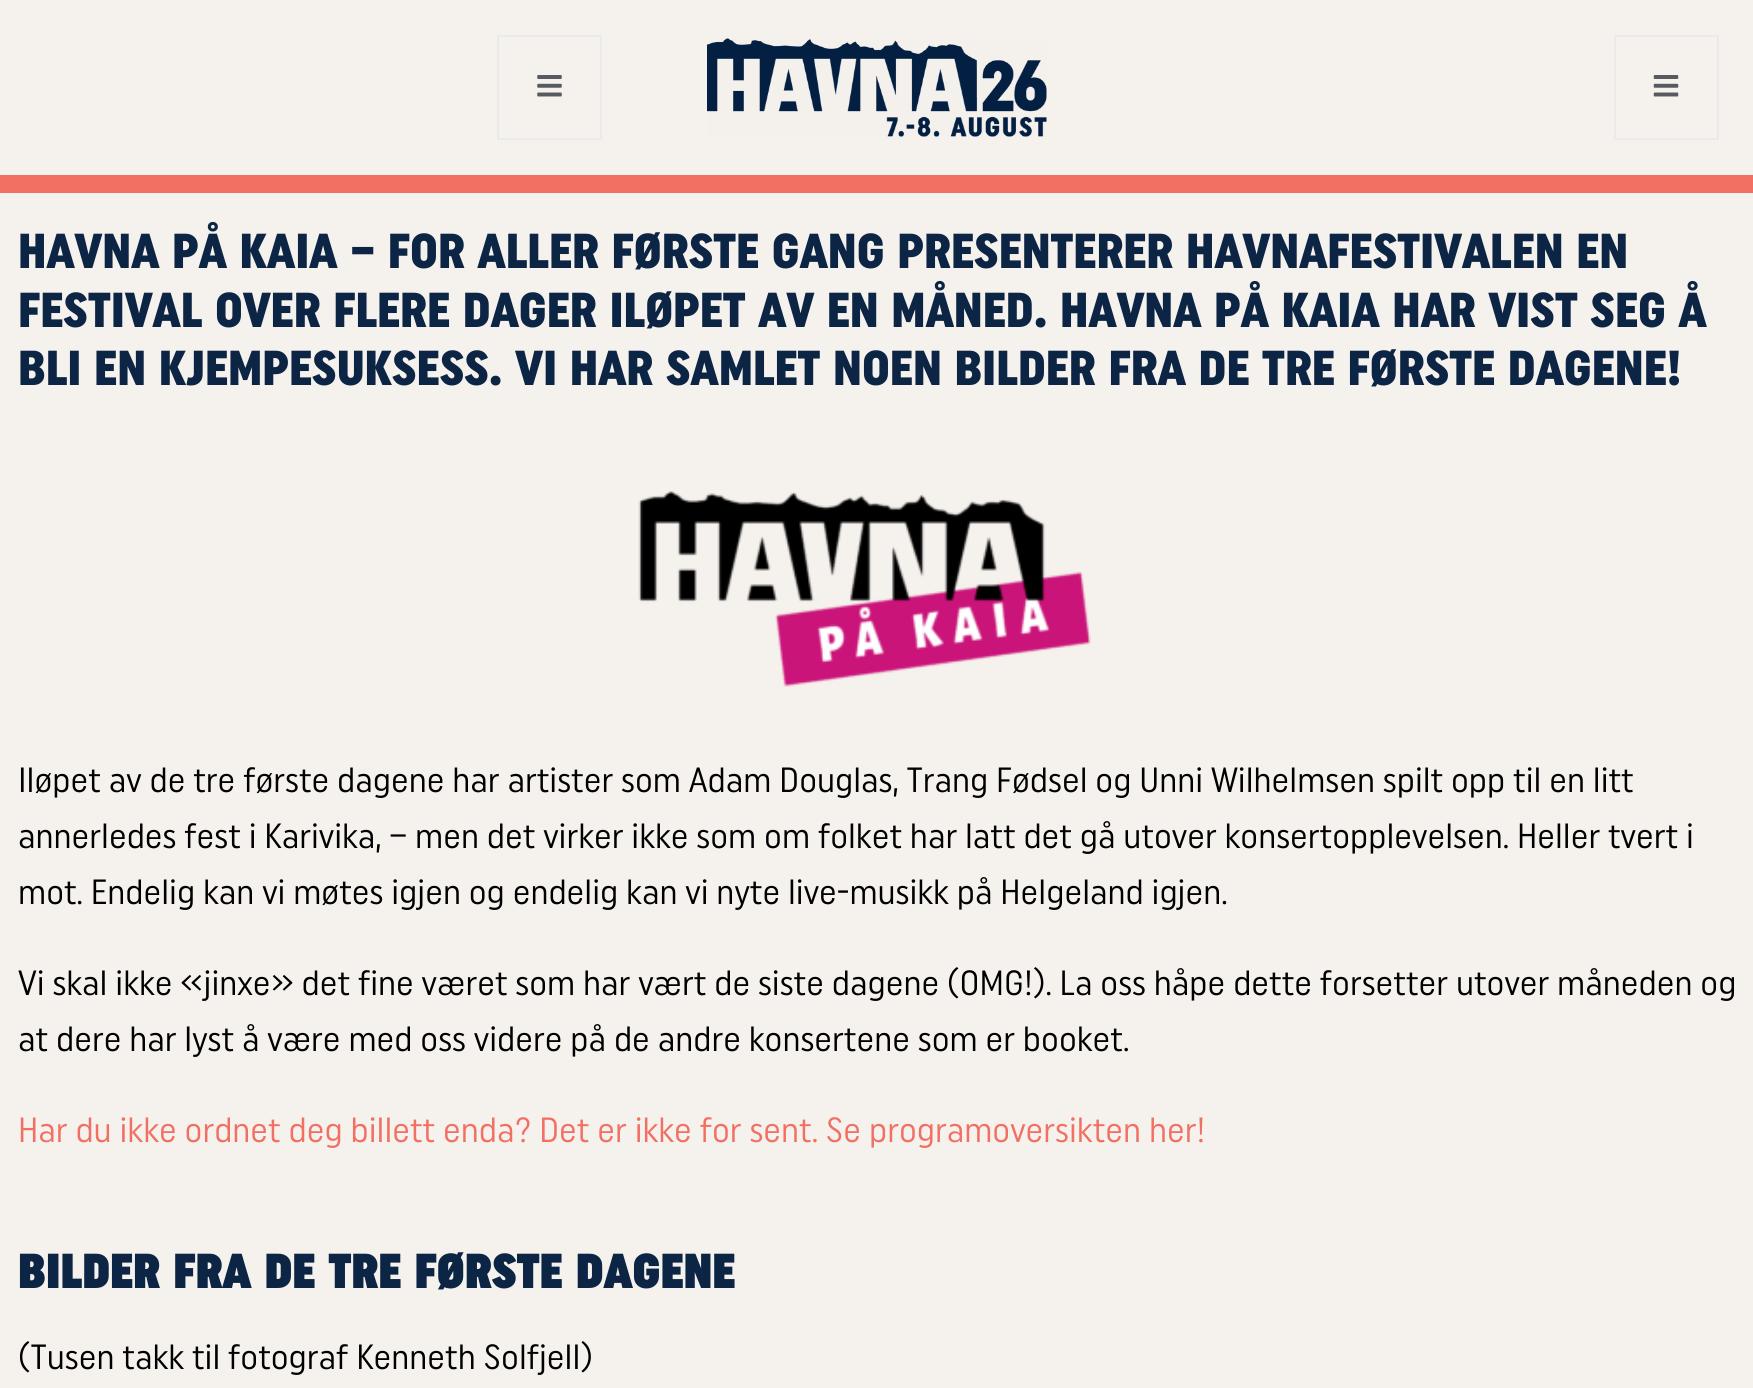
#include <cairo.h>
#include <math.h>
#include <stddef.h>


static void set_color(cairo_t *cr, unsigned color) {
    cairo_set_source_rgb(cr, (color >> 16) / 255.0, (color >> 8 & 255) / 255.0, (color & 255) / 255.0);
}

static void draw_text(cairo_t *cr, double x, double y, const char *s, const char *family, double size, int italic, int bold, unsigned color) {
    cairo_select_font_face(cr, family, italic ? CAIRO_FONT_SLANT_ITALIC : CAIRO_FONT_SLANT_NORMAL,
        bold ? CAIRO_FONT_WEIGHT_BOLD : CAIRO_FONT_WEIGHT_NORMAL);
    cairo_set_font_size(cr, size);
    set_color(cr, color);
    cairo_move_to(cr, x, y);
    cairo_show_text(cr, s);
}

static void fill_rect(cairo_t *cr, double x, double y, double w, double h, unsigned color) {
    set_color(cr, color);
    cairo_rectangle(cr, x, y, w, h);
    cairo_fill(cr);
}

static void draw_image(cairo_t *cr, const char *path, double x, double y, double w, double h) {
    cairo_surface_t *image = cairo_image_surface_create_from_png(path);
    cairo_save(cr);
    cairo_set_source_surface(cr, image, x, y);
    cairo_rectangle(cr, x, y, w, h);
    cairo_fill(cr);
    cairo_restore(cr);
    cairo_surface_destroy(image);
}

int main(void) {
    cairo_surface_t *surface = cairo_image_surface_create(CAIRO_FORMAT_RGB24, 1753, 1388);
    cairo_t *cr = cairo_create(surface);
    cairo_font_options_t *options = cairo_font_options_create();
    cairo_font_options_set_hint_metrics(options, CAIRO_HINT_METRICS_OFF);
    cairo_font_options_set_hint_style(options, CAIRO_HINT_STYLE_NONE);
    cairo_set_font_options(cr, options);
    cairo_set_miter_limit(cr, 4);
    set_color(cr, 0xF5F1ED);
    cairo_paint(cr);
    fill_rect(cr, 0, 175, 1753, 18, 0xF26F63);
    cairo_rectangle(cr, 498, 36, 103, 103);
    set_color(cr, 0xEAEAEB);
    cairo_stroke(cr);
    draw_image(cr, "assets/img1.png", 537, 75, 25, 22);
    draw_image(cr, "assets/img2.png", 707, 38, 340, 99);
    cairo_rectangle(cr, 1615, 36, 103, 103);
    cairo_stroke(cr);
    draw_image(cr, "assets/img3.png", 1653, 75, 26, 22);
    draw_text(cr, 18, 268, "HAVNA PÅ KAIA – FOR ALLER FØRSTE GANG PRESENTERER HAVNAFESTIVALEN EN", "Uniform", 49, 0, 0, 0x0C2545);
    draw_text(cr, 18, 327, "FESTIVAL OVER FLERE DAGER ILØPET AV EN MÅNED. HAVNA PÅ KAIA HAR VIST SEG Å", "Uniform", 49, 0, 0, 0x0C2545);
    draw_text(cr, 18, 385, "BLI EN KJEMPESUKSESS. VI HAR SAMLET NOEN BILDER FRA DE TRE FØRSTE DAGENE!", "Uniform", 49, 0, 0, 0x0C2545);
    draw_image(cr, "assets/img4.png", 638, 491, 453, 196);
    draw_text(cr, 18, 792, "Iløpet av de tre første dagene har artister som Adam Douglas, Trang Fødsel og Unni Wilhelmsen spilt opp til en litt", "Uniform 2", 35, 0, 0, 0x000000);
    draw_text(cr, 18, 848, "annerledes fest i Karivika, – men det virker ikke som om folket har latt det gå utover konsertopplevelsen. Heller tvert i", "Uniform 2", 35, 0, 0, 0x000000);
    draw_text(cr, 18, 904, "mot. Endelig kan vi møtes igjen og endelig kan vi nyte live-musikk på Helgeland igjen.", "Uniform 2", 35, 0, 0, 0x000000);
    draw_text(cr, 18, 995, "Vi skal ikke «jinxe» det fine været som har vært de siste dagene (OMG!). La oss håpe dette forsetter utover måneden og", "Uniform 2", 35, 0, 0, 0x000000);
    draw_text(cr, 18, 1051, "at dere har lyst å være med oss videre på de andre konsertene som er booket.", "Uniform 2", 35, 0, 0, 0x000000);
    draw_text(cr, 18, 1142, "Har du ikke ordnet deg billett enda? Det er ikke for sent. Se programoversikten her!", "Uniform 2", 35, 0, 0, 0xF26F63);
    draw_text(cr, 18, 1288, "BILDER FRA DE TRE FØRSTE DAGENE", "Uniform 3", 49, 0, 0, 0x0C2545);
    draw_text(cr, 18, 1369, "(Tusen takk til fotograf Kenneth Solfjell)", "Uniform 2", 35, 0, 0, 0x000000);
    cairo_surface_write_to_png(surface, "output.png");
    cairo_font_options_destroy(options);
    cairo_destroy(cr);
    cairo_surface_destroy(surface);
    return 0;
}
